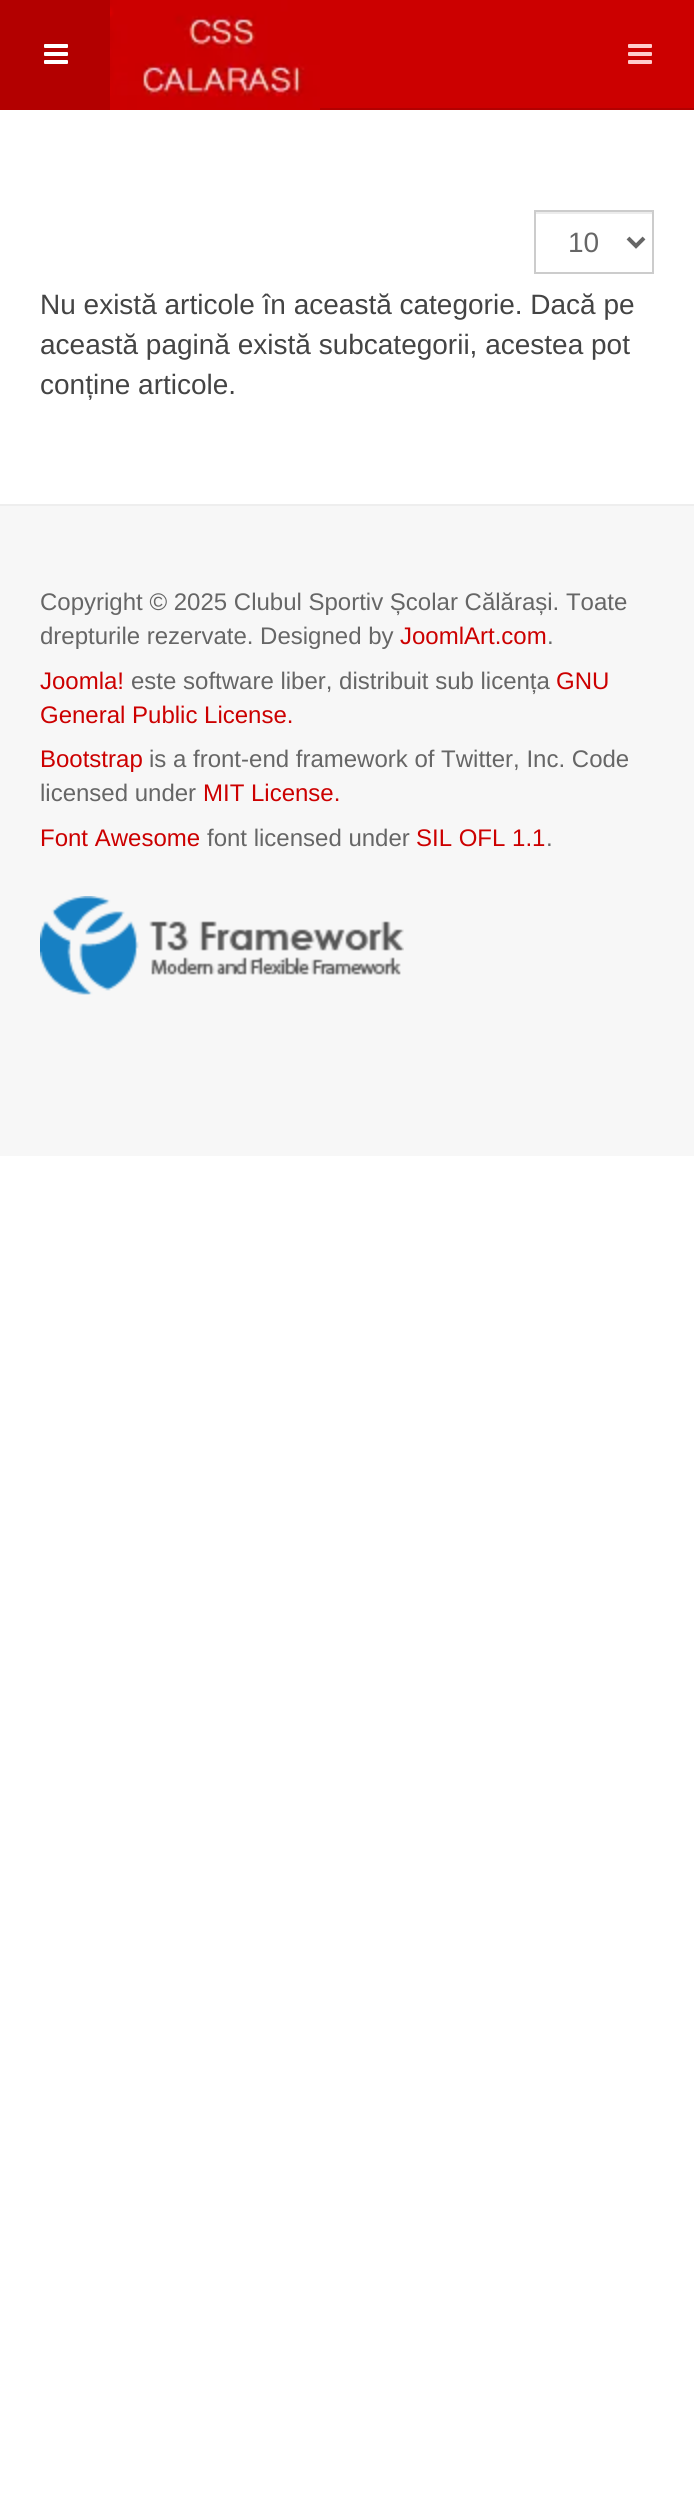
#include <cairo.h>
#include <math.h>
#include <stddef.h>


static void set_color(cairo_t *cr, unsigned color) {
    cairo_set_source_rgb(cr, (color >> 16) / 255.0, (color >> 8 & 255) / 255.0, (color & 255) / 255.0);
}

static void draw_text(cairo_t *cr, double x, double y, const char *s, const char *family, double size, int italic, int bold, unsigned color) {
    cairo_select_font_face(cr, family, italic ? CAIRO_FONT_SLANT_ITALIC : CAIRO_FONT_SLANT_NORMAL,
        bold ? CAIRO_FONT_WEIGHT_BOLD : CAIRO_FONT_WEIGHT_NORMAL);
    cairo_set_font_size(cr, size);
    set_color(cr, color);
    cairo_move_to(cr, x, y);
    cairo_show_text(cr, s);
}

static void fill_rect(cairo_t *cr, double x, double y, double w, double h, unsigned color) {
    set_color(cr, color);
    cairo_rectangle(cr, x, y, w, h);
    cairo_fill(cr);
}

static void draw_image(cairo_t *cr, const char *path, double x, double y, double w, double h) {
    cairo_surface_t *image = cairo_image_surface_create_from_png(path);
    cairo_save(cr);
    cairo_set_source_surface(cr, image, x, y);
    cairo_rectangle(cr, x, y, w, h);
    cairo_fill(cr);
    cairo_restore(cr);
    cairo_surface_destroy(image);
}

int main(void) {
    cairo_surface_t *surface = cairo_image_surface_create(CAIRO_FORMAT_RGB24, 694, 2506);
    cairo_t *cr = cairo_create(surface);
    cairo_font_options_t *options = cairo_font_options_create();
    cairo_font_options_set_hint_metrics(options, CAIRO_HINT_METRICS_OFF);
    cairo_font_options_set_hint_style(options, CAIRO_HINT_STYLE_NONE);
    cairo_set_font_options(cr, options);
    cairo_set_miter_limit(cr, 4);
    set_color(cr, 0xFFFFFF);
    cairo_paint(cr);
    fill_rect(cr, 320, 0, 374, 108, 0xCC0000);
    fill_rect(cr, 320, 108, 374, 2, 0xB30000);
    fill_rect(cr, 0, 0, 110, 110, 0xB30000);
    draw_image(cr, "assets/img1.png", 44, 44, 24, 20);
    draw_image(cr, "assets/img2.png", 110, 0, 210, 110);
    draw_image(cr, "assets/img3.png", 628, 44, 24, 20);
    fill_rect(cr, 536, 212, 116, 2, 0xECECEC);
    cairo_rectangle(cr, 535, 211, 118, 62);
    set_color(cr, 0xCCCCCC);
    cairo_stroke(cr);
    cairo_new_path(cr);
    cairo_move_to(cr, 628, 238);
    cairo_line_to(cr, 636, 246);
    cairo_line_to(cr, 644, 238);
    set_color(cr, 0x666666);
    cairo_set_line_width(cr, 4);
    cairo_stroke(cr);
    draw_text(cr, 568, 252, "10", "Liberation Sans", 28, 0, 0, 0x666666);
    draw_text(cr, 40, 314, "Nu există articole în această categorie. Dacă pe", "Liberation Sans", 28, 0, 0, 0x444444);
    draw_text(cr, 40, 354, "această pagină există subcategorii, acestea pot", "Liberation Sans", 28, 0, 0, 0x444444);
    draw_text(cr, 40, 394, "conține articole.", "Liberation Sans", 28, 0, 0, 0x444444);
    fill_rect(cr, 0, 506, 694, 650, 0xF7F7F7);
    fill_rect(cr, 0, 504, 694, 2, 0xEEEEEE);
    draw_text(cr, 40, 610, "Copyright © 2025 Clubul Sportiv Școlar Călărași. Toate", "Liberation Sans", 24, 0, 0, 0x666666);
    draw_text(cr, 40, 644, "drepturile rezervate. Designed by", "Liberation Sans", 24, 0, 0, 0x666666);
    draw_text(cr, 400, 644, "JoomlArt.com", "Liberation Sans", 24, 0, 0, 0xCC0000);
    draw_text(cr, 547, 644, ".", "Liberation Sans", 24, 0, 0, 0x666666);
    draw_text(cr, 40, 689, "Joomla!", "Liberation Sans", 24, 0, 0, 0xCC0000);
    draw_text(cr, 131, 689, "este software liber, distribuit sub licența", "Liberation Sans", 24, 0, 0, 0x666666);
    draw_text(cr, 556, 689, "GNU", "Liberation Sans", 24, 0, 0, 0xCC0000);
    draw_text(cr, 40, 723, "General Public License.", "Liberation Sans", 24, 0, 0, 0xCC0000);
    draw_text(cr, 40, 767, "Bootstrap", "Liberation Sans", 24, 0, 0, 0xCC0000);
    draw_text(cr, 149, 767, "is a front-end framework of Twitter, Inc. Code", "Liberation Sans", 24, 0, 0, 0x666666);
    draw_text(cr, 40, 801, "licensed under", "Liberation Sans", 24, 0, 0, 0x666666);
    draw_text(cr, 203, 801, "MIT License.", "Liberation Sans", 24, 0, 0, 0xCC0000);
    draw_text(cr, 40, 846, "Font Awesome", "Liberation Sans", 24, 0, 0, 0xCC0000);
    draw_text(cr, 207, 846, "font licensed under", "Liberation Sans", 24, 0, 0, 0x666666);
    draw_text(cr, 416, 846, "SIL OFL 1.1", "Liberation Sans", 24, 0, 0, 0xCC0000);
    draw_text(cr, 546, 846, ".", "Liberation Sans", 24, 0, 0, 0x666666);
    draw_image(cr, "assets/img4.png", 40, 896, 364, 99);
    cairo_surface_write_to_png(surface, "output.png");
    cairo_font_options_destroy(options);
    cairo_destroy(cr);
    cairo_surface_destroy(surface);
    return 0;
}
